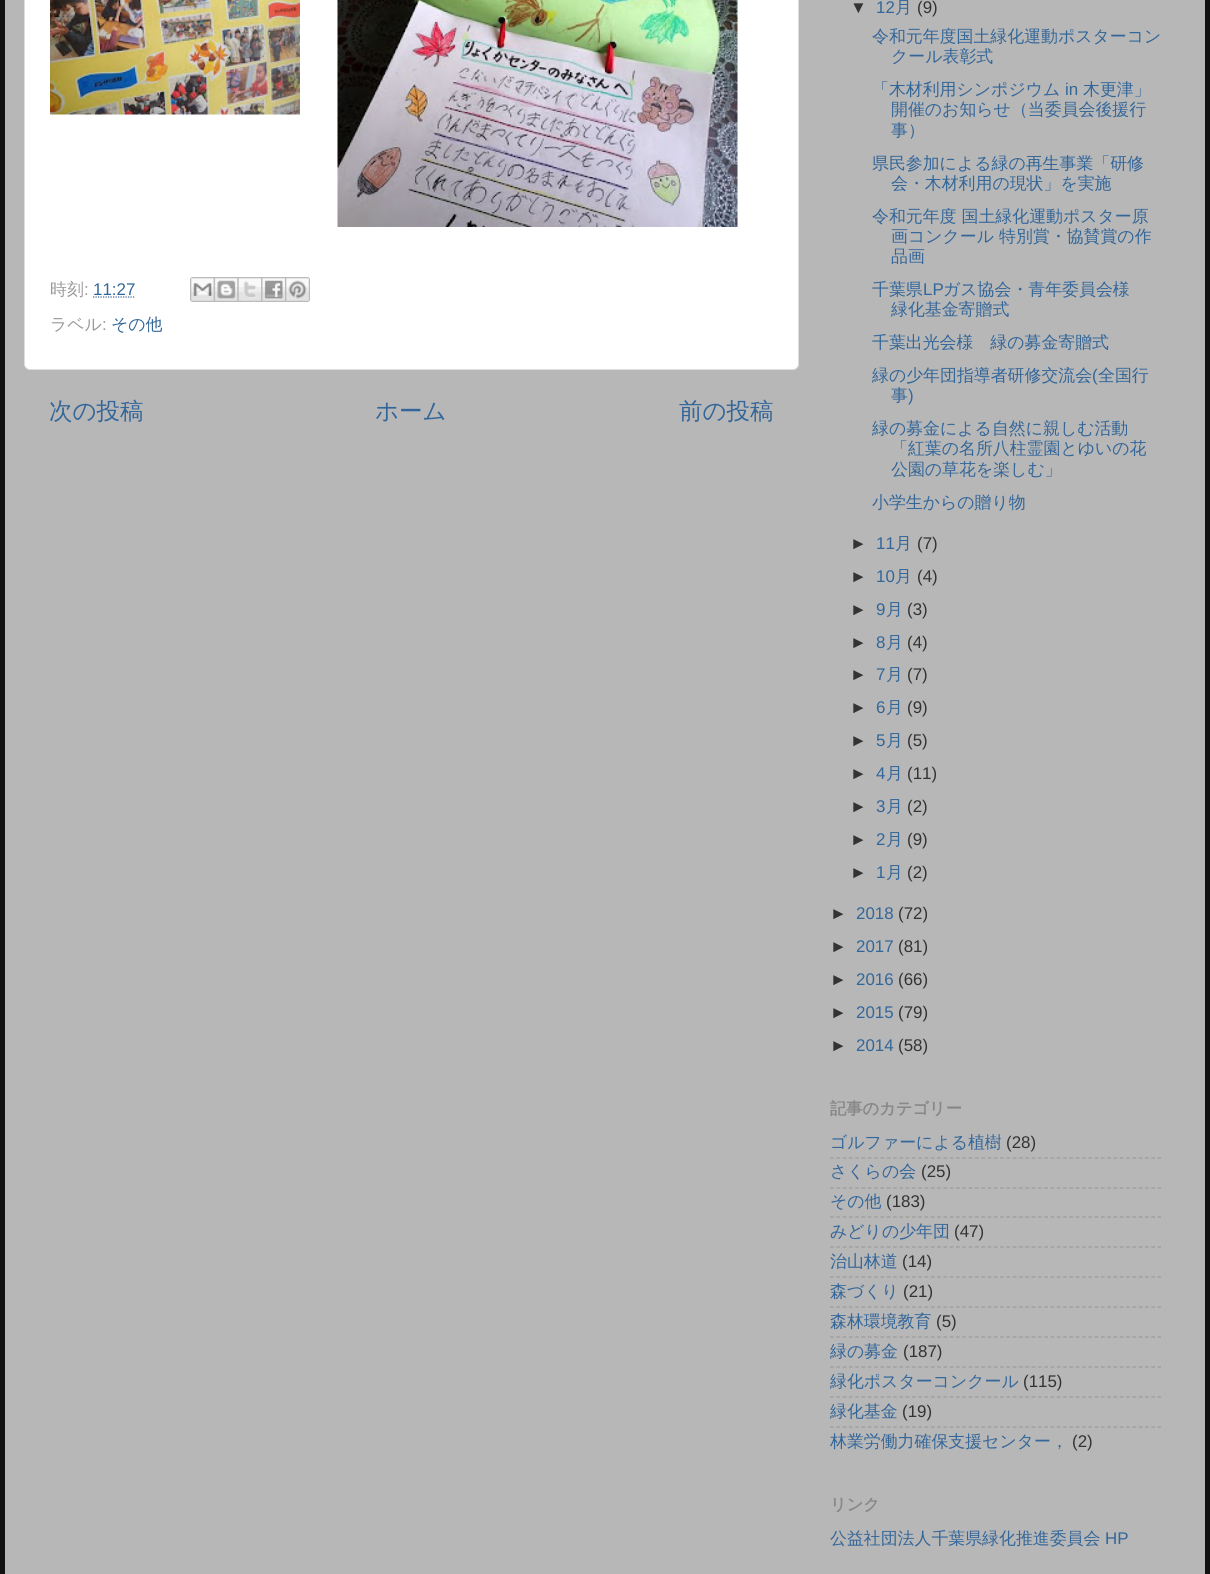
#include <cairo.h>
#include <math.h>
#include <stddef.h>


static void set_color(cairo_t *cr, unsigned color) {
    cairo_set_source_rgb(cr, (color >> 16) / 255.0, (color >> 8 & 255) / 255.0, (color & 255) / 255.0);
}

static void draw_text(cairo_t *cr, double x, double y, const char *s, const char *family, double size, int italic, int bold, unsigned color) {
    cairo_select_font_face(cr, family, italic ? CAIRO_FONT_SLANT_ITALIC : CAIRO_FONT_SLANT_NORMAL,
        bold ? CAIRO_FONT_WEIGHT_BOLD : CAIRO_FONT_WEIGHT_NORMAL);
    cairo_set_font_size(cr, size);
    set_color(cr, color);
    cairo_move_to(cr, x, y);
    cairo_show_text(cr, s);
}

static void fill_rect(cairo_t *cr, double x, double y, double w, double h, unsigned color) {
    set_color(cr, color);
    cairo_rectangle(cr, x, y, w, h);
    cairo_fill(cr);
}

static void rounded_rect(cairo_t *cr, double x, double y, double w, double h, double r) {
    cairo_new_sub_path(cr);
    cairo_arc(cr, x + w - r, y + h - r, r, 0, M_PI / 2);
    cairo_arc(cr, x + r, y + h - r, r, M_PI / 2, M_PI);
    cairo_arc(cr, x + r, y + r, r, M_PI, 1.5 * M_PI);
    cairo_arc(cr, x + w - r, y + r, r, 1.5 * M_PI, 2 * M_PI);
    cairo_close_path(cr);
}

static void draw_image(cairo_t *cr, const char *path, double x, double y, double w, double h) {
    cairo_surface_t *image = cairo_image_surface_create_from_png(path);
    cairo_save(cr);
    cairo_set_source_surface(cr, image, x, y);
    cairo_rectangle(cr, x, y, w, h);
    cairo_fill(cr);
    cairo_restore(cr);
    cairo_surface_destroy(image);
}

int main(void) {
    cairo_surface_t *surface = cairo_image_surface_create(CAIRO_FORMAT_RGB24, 1210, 1574);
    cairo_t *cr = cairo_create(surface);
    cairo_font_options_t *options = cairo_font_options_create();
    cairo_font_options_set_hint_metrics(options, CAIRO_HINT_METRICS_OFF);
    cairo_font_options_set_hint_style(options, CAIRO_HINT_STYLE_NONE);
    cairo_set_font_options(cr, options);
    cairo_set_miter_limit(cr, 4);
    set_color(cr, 0x111111);
    cairo_paint(cr);
    fill_rect(cr, 5, 0, 1200, 1574, 0xB7B7B7);
    set_color(cr, 0xFFFFFF);
    rounded_rect(cr, 24.5, -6.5, 774, 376, 5.5);
    cairo_fill_preserve(cr);
    set_color(cr, 0xDDDDDD);
    cairo_set_line_width(cr, 1);
    cairo_stroke(cr);
    draw_image(cr, "assets/img1.png", 50, 0, 250, 115);
    draw_image(cr, "assets/img2.png", 337, 0, 401, 227);
    draw_text(cr, 50, 295, "時刻", "WenQuanYi Zen Hei Medium", 16.9, 0, 0, 0x999999);
    draw_text(cr, 84, 295, ":", "Liberation Sans", 16.9, 0, 0, 0x999999);
    draw_text(cr, 93, 295, "11:27", "Liberation Sans", 16.9, 0, 0, 0x336699);
    cairo_new_path(cr);
    cairo_move_to(cr, 93, 297);
    cairo_line_to(cr, 135.5, 297);
    cairo_set_line_width(cr, 1.2);
    cairo_set_dash(cr, (double[]){1.25, 1.25}, 2, 0);
    cairo_stroke(cr);
    draw_image(cr, "assets/img3.png", 190, 277, 24, 25);
    draw_image(cr, "assets/img4.png", 213, 277, 25, 25);
    draw_image(cr, "assets/img5.png", 237, 277, 25, 25);
    draw_image(cr, "assets/img6.png", 261, 277, 24, 25);
    draw_image(cr, "assets/img7.png", 285, 277, 25, 25);
    draw_text(cr, 50, 330, "ラベル", "WenQuanYi Zen Hei Medium", 16.9, 0, 0, 0x999999);
    draw_text(cr, 102, 330, ":", "Liberation Sans", 16.9, 0, 0, 0x999999);
    draw_text(cr, 111, 330, "その他", "WenQuanYi Zen Hei Medium", 16.9, 0, 0, 0x336699);
    draw_text(cr, 49, 419, "次の投稿", "WenQuanYi Zen Hei Medium", 23.5, 0, 0, 0x336699);
    draw_text(cr, 375, 419, "ホーム", "WenQuanYi Zen Hei Medium", 23.5, 0, 0, 0x336699);
    draw_text(cr, 679, 419, "前の投稿", "WenQuanYi Zen Hei Medium", 23.5, 0, 0, 0x336699);
    draw_text(cr, 850, 13, "▼", "Liberation Sans", 16.9, 0, 0, 0x333333);
    draw_text(cr, 876, 13, "12", "Liberation Sans", 16.9, 0, 0, 0x336699);
    draw_text(cr, 895, 13, "月", "WenQuanYi Zen Hei Medium", 16.9, 0, 0, 0x336699);
    draw_text(cr, 917, 13, "(9)", "Liberation Sans", 16.9, 0, 0, 0x333333);
    draw_text(cr, 872, 42, "令和元年度国土緑化運動ポスターコン", "WenQuanYi Zen Hei Medium", 16.9, 0, 0, 0x336699);
    draw_text(cr, 891, 62, "クール表彰式", "WenQuanYi Zen Hei Medium", 16.9, 0, 0, 0x336699);
    draw_text(cr, 872, 95, "「木材利用シンポジウム", "WenQuanYi Zen Hei Medium", 16.9, 0, 0, 0x336699);
    draw_text(cr, 1065, 95, "in", "Liberation Sans", 16.9, 0, 0, 0x336699);
    draw_text(cr, 1083, 95, "木更津」", "WenQuanYi Zen Hei Medium", 16.9, 0, 0, 0x336699);
    draw_text(cr, 891, 115, "開催のお知らせ（当委員会後援行", "WenQuanYi Zen Hei Medium", 16.9, 0, 0, 0x336699);
    draw_text(cr, 891, 136, "事）", "WenQuanYi Zen Hei Medium", 16.9, 0, 0, 0x336699);
    draw_text(cr, 872, 169, "県民参加による緑の再生事業「研修", "WenQuanYi Zen Hei Medium", 16.9, 0, 0, 0x336699);
    draw_text(cr, 891, 189, "会・木材利用の現状」を実施", "WenQuanYi Zen Hei Medium", 16.9, 0, 0, 0x336699);
    draw_text(cr, 872, 222, "令和元年度 国土緑化運動ポスター原", "WenQuanYi Zen Hei Medium", 16.9, 0, 0, 0x336699);
    draw_text(cr, 891, 242, "画コンクール 特別賞・協賛賞の作", "WenQuanYi Zen Hei Medium", 16.9, 0, 0, 0x336699);
    draw_text(cr, 891, 262, "品画", "WenQuanYi Zen Hei Medium", 16.9, 0, 0, 0x336699);
    draw_text(cr, 872, 295, "千葉県", "WenQuanYi Zen Hei Medium", 16.9, 0, 0, 0x336699);
    draw_text(cr, 923, 295, "LP", "Liberation Sans", 16.9, 0, 0, 0x336699);
    draw_text(cr, 943, 295, "ガス協会・青年委員会様", "WenQuanYi Zen Hei Medium", 16.9, 0, 0, 0x336699);
    draw_text(cr, 891, 315, "緑化基金寄贈式", "WenQuanYi Zen Hei Medium", 16.9, 0, 0, 0x336699);
    draw_text(cr, 872, 348, "千葉出光会様　緑の募金寄贈式", "WenQuanYi Zen Hei Medium", 16.9, 0, 0, 0x336699);
    draw_text(cr, 872, 381, "緑の少年団指導者研修交流会", "WenQuanYi Zen Hei Medium", 16.9, 0, 0, 0x336699);
    draw_text(cr, 1092, 381, "(", "Liberation Sans", 16.9, 0, 0, 0x336699);
    draw_text(cr, 1098, 381, "全国行", "WenQuanYi Zen Hei Medium", 16.9, 0, 0, 0x336699);
    draw_text(cr, 891, 401, "事", "WenQuanYi Zen Hei Medium", 16.9, 0, 0, 0x336699);
    draw_text(cr, 908, 401, ")", "Liberation Sans", 16.9, 0, 0, 0x336699);
    draw_text(cr, 872, 434, "緑の募金による自然に親しむ活動", "WenQuanYi Zen Hei Medium", 16.9, 0, 0, 0x336699);
    draw_text(cr, 891, 454, "「紅葉の名所八柱霊園とゆいの花", "WenQuanYi Zen Hei Medium", 16.9, 0, 0, 0x336699);
    draw_text(cr, 891, 475, "公園の草花を楽しむ」", "WenQuanYi Zen Hei Medium", 16.9, 0, 0, 0x336699);
    draw_text(cr, 872, 508, "小学生からの贈り物", "WenQuanYi Zen Hei Medium", 16.9, 0, 0, 0x336699);
    draw_text(cr, 850, 549, "►", "Liberation Sans", 16.9, 0, 0, 0x333333);
    draw_text(cr, 876, 549, "11", "Liberation Sans", 16.9, 0, 0, 0x336699);
    draw_text(cr, 895, 549, "月", "WenQuanYi Zen Hei Medium", 16.9, 0, 0, 0x336699);
    draw_text(cr, 917, 549, "(7)", "Liberation Sans", 16.9, 0, 0, 0x333333);
    draw_text(cr, 850, 582, "►", "Liberation Sans", 16.9, 0, 0, 0x333333);
    draw_text(cr, 876, 582, "10", "Liberation Sans", 16.9, 0, 0, 0x336699);
    draw_text(cr, 895, 582, "月", "WenQuanYi Zen Hei Medium", 16.9, 0, 0, 0x336699);
    draw_text(cr, 917, 582, "(4)", "Liberation Sans", 16.9, 0, 0, 0x333333);
    draw_text(cr, 850, 615, "►", "Liberation Sans", 16.9, 0, 0, 0x333333);
    draw_text(cr, 876, 615, "9", "Liberation Sans", 16.9, 0, 0, 0x336699);
    draw_text(cr, 886, 615, "月", "WenQuanYi Zen Hei Medium", 16.9, 0, 0, 0x336699);
    draw_text(cr, 907, 615, "(3)", "Liberation Sans", 16.9, 0, 0, 0x333333);
    draw_text(cr, 850, 648, "►", "Liberation Sans", 16.9, 0, 0, 0x333333);
    draw_text(cr, 876, 648, "8", "Liberation Sans", 16.9, 0, 0, 0x336699);
    draw_text(cr, 886, 648, "月", "WenQuanYi Zen Hei Medium", 16.9, 0, 0, 0x336699);
    draw_text(cr, 907, 648, "(4)", "Liberation Sans", 16.9, 0, 0, 0x333333);
    draw_text(cr, 850, 680, "►", "Liberation Sans", 16.9, 0, 0, 0x333333);
    draw_text(cr, 876, 680, "7", "Liberation Sans", 16.9, 0, 0, 0x336699);
    draw_text(cr, 886, 680, "月", "WenQuanYi Zen Hei Medium", 16.9, 0, 0, 0x336699);
    draw_text(cr, 907, 680, "(7)", "Liberation Sans", 16.9, 0, 0, 0x333333);
    draw_text(cr, 850, 713, "►", "Liberation Sans", 16.9, 0, 0, 0x333333);
    draw_text(cr, 876, 713, "6", "Liberation Sans", 16.9, 0, 0, 0x336699);
    draw_text(cr, 886, 713, "月", "WenQuanYi Zen Hei Medium", 16.9, 0, 0, 0x336699);
    draw_text(cr, 907, 713, "(9)", "Liberation Sans", 16.9, 0, 0, 0x333333);
    draw_text(cr, 850, 746, "►", "Liberation Sans", 16.9, 0, 0, 0x333333);
    draw_text(cr, 876, 746, "5", "Liberation Sans", 16.9, 0, 0, 0x336699);
    draw_text(cr, 886, 746, "月", "WenQuanYi Zen Hei Medium", 16.9, 0, 0, 0x336699);
    draw_text(cr, 907, 746, "(5)", "Liberation Sans", 16.9, 0, 0, 0x333333);
    draw_text(cr, 850, 779, "►", "Liberation Sans", 16.9, 0, 0, 0x333333);
    draw_text(cr, 876, 779, "4", "Liberation Sans", 16.9, 0, 0, 0x336699);
    draw_text(cr, 886, 779, "月", "WenQuanYi Zen Hei Medium", 16.9, 0, 0, 0x336699);
    draw_text(cr, 907, 779, "(11)", "Liberation Sans", 16.9, 0, 0, 0x333333);
    draw_text(cr, 850, 812, "►", "Liberation Sans", 16.9, 0, 0, 0x333333);
    draw_text(cr, 876, 812, "3", "Liberation Sans", 16.9, 0, 0, 0x336699);
    draw_text(cr, 886, 812, "月", "WenQuanYi Zen Hei Medium", 16.9, 0, 0, 0x336699);
    draw_text(cr, 907, 812, "(2)", "Liberation Sans", 16.9, 0, 0, 0x333333);
    draw_text(cr, 850, 845, "►", "Liberation Sans", 16.9, 0, 0, 0x333333);
    draw_text(cr, 876, 845, "2", "Liberation Sans", 16.9, 0, 0, 0x336699);
    draw_text(cr, 886, 845, "月", "WenQuanYi Zen Hei Medium", 16.9, 0, 0, 0x336699);
    draw_text(cr, 907, 845, "(9)", "Liberation Sans", 16.9, 0, 0, 0x333333);
    draw_text(cr, 850, 878, "►", "Liberation Sans", 16.9, 0, 0, 0x333333);
    draw_text(cr, 876, 878, "1", "Liberation Sans", 16.9, 0, 0, 0x336699);
    draw_text(cr, 886, 878, "月", "WenQuanYi Zen Hei Medium", 16.9, 0, 0, 0x336699);
    draw_text(cr, 907, 878, "(2)", "Liberation Sans", 16.9, 0, 0, 0x333333);
    draw_text(cr, 830, 919, "►", "Liberation Sans", 16.9, 0, 0, 0x333333);
    draw_text(cr, 856, 919, "2018", "Liberation Sans", 16.9, 0, 0, 0x336699);
    draw_text(cr, 898, 919, "(72)", "Liberation Sans", 16.9, 0, 0, 0x333333);
    draw_text(cr, 830, 952, "►", "Liberation Sans", 16.9, 0, 0, 0x333333);
    draw_text(cr, 856, 952, "2017", "Liberation Sans", 16.9, 0, 0, 0x336699);
    draw_text(cr, 898, 952, "(81)", "Liberation Sans", 16.9, 0, 0, 0x333333);
    draw_text(cr, 830, 985, "►", "Liberation Sans", 16.9, 0, 0, 0x333333);
    draw_text(cr, 856, 985, "2016", "Liberation Sans", 16.9, 0, 0, 0x336699);
    draw_text(cr, 898, 985, "(66)", "Liberation Sans", 16.9, 0, 0, 0x333333);
    draw_text(cr, 830, 1018, "►", "Liberation Sans", 16.9, 0, 0, 0x333333);
    draw_text(cr, 856, 1018, "2015", "Liberation Sans", 16.9, 0, 0, 0x336699);
    draw_text(cr, 898, 1018, "(79)", "Liberation Sans", 16.9, 0, 0, 0x333333);
    draw_text(cr, 830, 1051, "►", "Liberation Sans", 16.9, 0, 0, 0x333333);
    draw_text(cr, 856, 1051, "2014", "Liberation Sans", 16.9, 0, 0, 0x336699);
    draw_text(cr, 898, 1051, "(58)", "Liberation Sans", 16.9, 0, 0, 0x333333);
    draw_text(cr, 830, 1114, "記事のカテゴリー", "WenQuanYi Zen Hei", 16.25, 0, 1, 0x888888);
    draw_text(cr, 830, 1148, "ゴルファーによる植樹", "WenQuanYi Zen Hei Medium", 16.9, 0, 0, 0x336699);
    draw_text(cr, 1006, 1148, "(28)", "Liberation Sans", 16.9, 0, 0, 0x333333);
    cairo_new_path(cr);
    cairo_move_to(cr, 830, 1158);
    cairo_line_to(cr, 1161, 1158);
    set_color(cr, 0x9C9C9C);
    cairo_set_dash(cr, (double[]){3.75, 2.55}, 2, 0);
    cairo_stroke(cr);
    draw_text(cr, 830, 1177, "さくらの会", "WenQuanYi Zen Hei Medium", 16.9, 0, 0, 0x336699);
    draw_text(cr, 921, 1177, "(25)", "Liberation Sans", 16.9, 0, 0, 0x333333);
    cairo_new_path(cr);
    cairo_move_to(cr, 830, 1188);
    cairo_line_to(cr, 1161, 1188);
    set_color(cr, 0x9C9C9C);
    cairo_stroke(cr);
    draw_text(cr, 830, 1207, "その他", "WenQuanYi Zen Hei Medium", 16.9, 0, 0, 0x336699);
    draw_text(cr, 886, 1207, "(183)", "Liberation Sans", 16.9, 0, 0, 0x333333);
    cairo_new_path(cr);
    cairo_move_to(cr, 830, 1217);
    cairo_line_to(cr, 1161, 1217);
    set_color(cr, 0x9C9C9C);
    cairo_stroke(cr);
    draw_text(cr, 830, 1237, "みどりの少年団", "WenQuanYi Zen Hei Medium", 16.9, 0, 0, 0x336699);
    draw_text(cr, 954, 1237, "(47)", "Liberation Sans", 16.9, 0, 0, 0x333333);
    cairo_new_path(cr);
    cairo_move_to(cr, 830, 1247);
    cairo_line_to(cr, 1161, 1247);
    set_color(cr, 0x9C9C9C);
    cairo_stroke(cr);
    draw_text(cr, 830, 1267, "治山林道", "WenQuanYi Zen Hei Medium", 16.9, 0, 0, 0x336699);
    draw_text(cr, 902, 1267, "(14)", "Liberation Sans", 16.9, 0, 0, 0x333333);
    cairo_new_path(cr);
    cairo_move_to(cr, 830, 1277);
    cairo_line_to(cr, 1161, 1277);
    set_color(cr, 0x9C9C9C);
    cairo_stroke(cr);
    draw_text(cr, 830, 1297, "森づくり", "WenQuanYi Zen Hei Medium", 16.9, 0, 0, 0x336699);
    draw_text(cr, 903, 1297, "(21)", "Liberation Sans", 16.9, 0, 0, 0x333333);
    cairo_new_path(cr);
    cairo_move_to(cr, 830, 1307);
    cairo_line_to(cr, 1161, 1307);
    set_color(cr, 0x9C9C9C);
    cairo_stroke(cr);
    draw_text(cr, 830, 1327, "森林環境教育", "WenQuanYi Zen Hei Medium", 16.9, 0, 0, 0x336699);
    draw_text(cr, 936, 1327, "(5)", "Liberation Sans", 16.9, 0, 0, 0x333333);
    cairo_new_path(cr);
    cairo_move_to(cr, 830, 1337);
    cairo_line_to(cr, 1161, 1337);
    set_color(cr, 0x9C9C9C);
    cairo_stroke(cr);
    draw_text(cr, 830, 1357, "緑の募金", "WenQuanYi Zen Hei Medium", 16.9, 0, 0, 0x336699);
    draw_text(cr, 903, 1357, "(187)", "Liberation Sans", 16.9, 0, 0, 0x333333);
    cairo_new_path(cr);
    cairo_move_to(cr, 830, 1367);
    cairo_line_to(cr, 1161, 1367);
    set_color(cr, 0x9C9C9C);
    cairo_stroke(cr);
    draw_text(cr, 830, 1387, "緑化ポスターコンクール", "WenQuanYi Zen Hei Medium", 16.9, 0, 0, 0x336699);
    draw_text(cr, 1023, 1387, "(115)", "Liberation Sans", 16.9, 0, 0, 0x333333);
    cairo_new_path(cr);
    cairo_move_to(cr, 830, 1397);
    cairo_line_to(cr, 1161, 1397);
    set_color(cr, 0x9C9C9C);
    cairo_stroke(cr);
    draw_text(cr, 830, 1417, "緑化基金", "WenQuanYi Zen Hei Medium", 16.9, 0, 0, 0x336699);
    draw_text(cr, 902, 1417, "(19)", "Liberation Sans", 16.9, 0, 0, 0x333333);
    cairo_new_path(cr);
    cairo_move_to(cr, 830, 1427);
    cairo_line_to(cr, 1161, 1427);
    set_color(cr, 0x9C9C9C);
    cairo_stroke(cr);
    draw_text(cr, 830, 1447, "林業労働力確保支援センター，", "WenQuanYi Zen Hei Medium", 16.9, 0, 0, 0x336699);
    draw_text(cr, 1072, 1447, "(2)", "Liberation Sans", 16.9, 0, 0, 0x333333);
    draw_text(cr, 830, 1510, "リンク", "WenQuanYi Zen Hei", 16.25, 0, 1, 0x888888);
    draw_text(cr, 830, 1544, "公益社団法人千葉県緑化推進委員会", "WenQuanYi Zen Hei Medium", 16.9, 0, 0, 0x336699);
    draw_text(cr, 1105, 1544, "HP", "Liberation Sans", 16.9, 0, 0, 0x336699);
    cairo_surface_write_to_png(surface, "output.png");
    cairo_font_options_destroy(options);
    cairo_destroy(cr);
    cairo_surface_destroy(surface);
    return 0;
}
